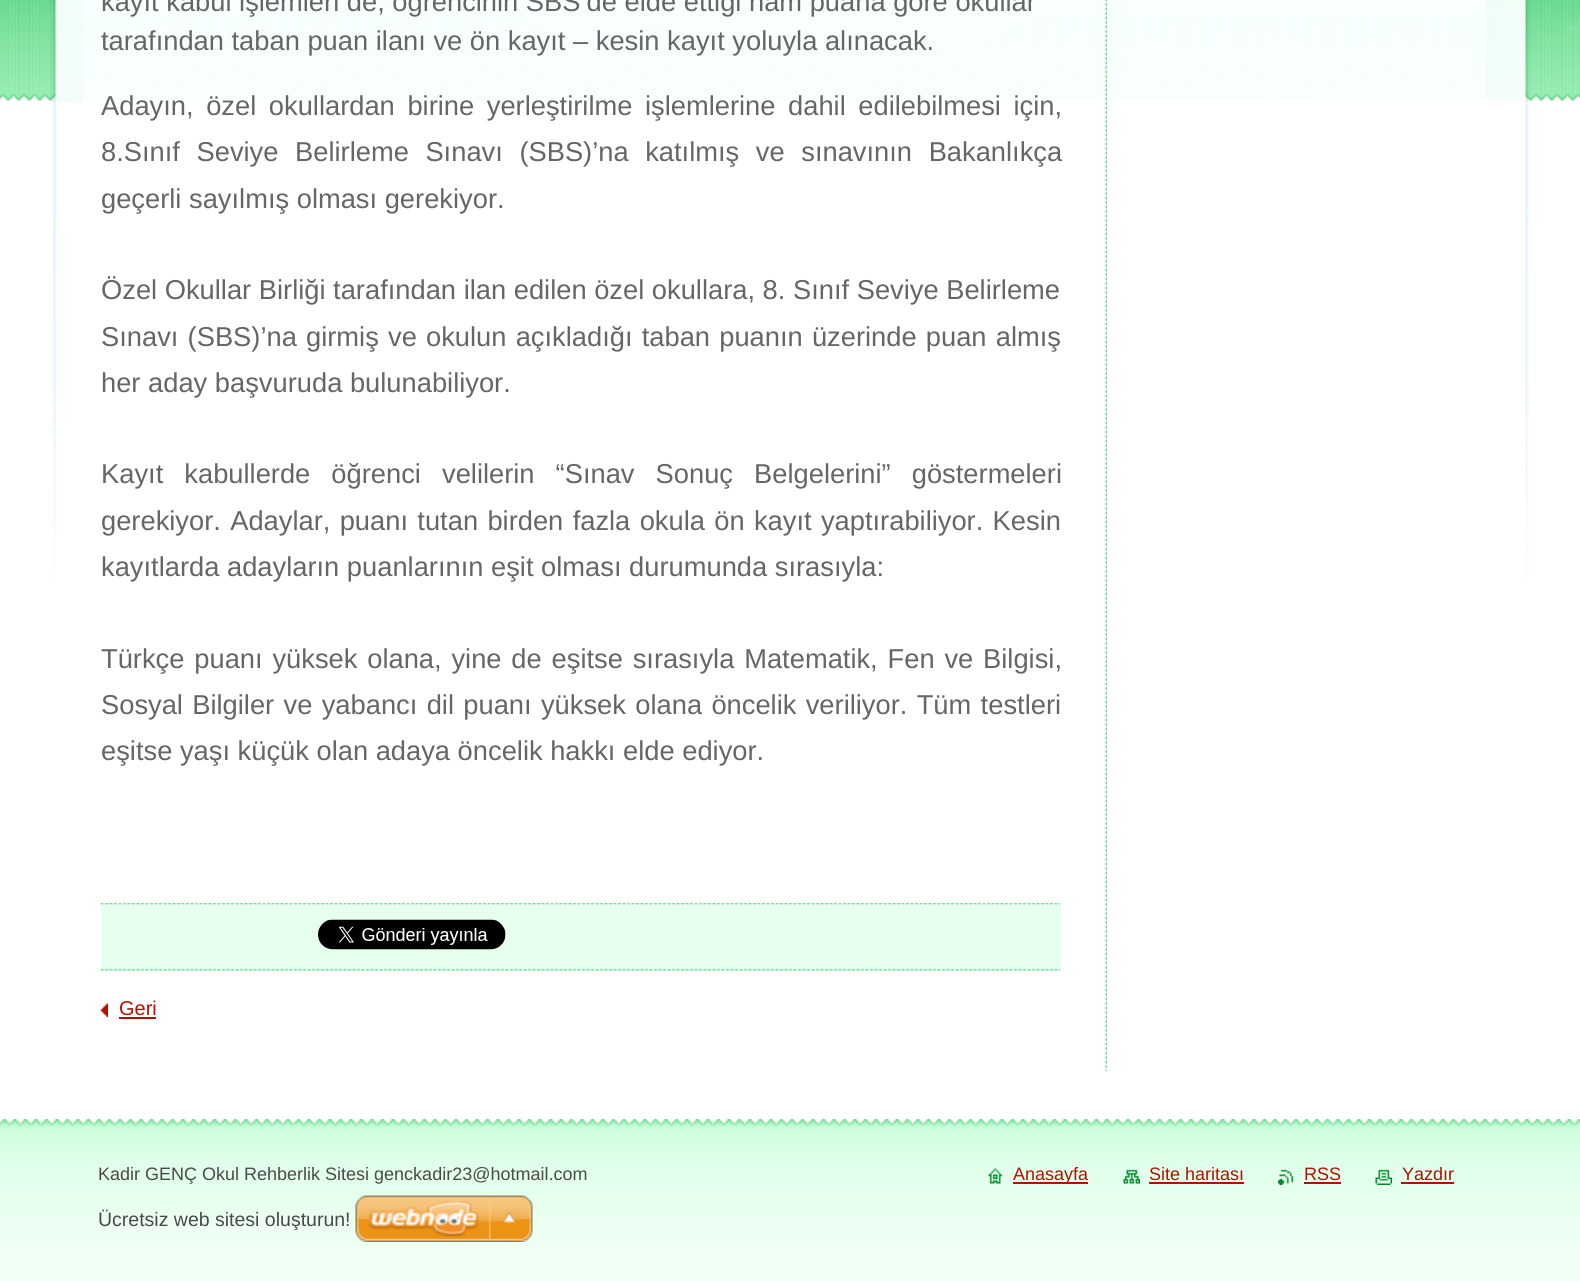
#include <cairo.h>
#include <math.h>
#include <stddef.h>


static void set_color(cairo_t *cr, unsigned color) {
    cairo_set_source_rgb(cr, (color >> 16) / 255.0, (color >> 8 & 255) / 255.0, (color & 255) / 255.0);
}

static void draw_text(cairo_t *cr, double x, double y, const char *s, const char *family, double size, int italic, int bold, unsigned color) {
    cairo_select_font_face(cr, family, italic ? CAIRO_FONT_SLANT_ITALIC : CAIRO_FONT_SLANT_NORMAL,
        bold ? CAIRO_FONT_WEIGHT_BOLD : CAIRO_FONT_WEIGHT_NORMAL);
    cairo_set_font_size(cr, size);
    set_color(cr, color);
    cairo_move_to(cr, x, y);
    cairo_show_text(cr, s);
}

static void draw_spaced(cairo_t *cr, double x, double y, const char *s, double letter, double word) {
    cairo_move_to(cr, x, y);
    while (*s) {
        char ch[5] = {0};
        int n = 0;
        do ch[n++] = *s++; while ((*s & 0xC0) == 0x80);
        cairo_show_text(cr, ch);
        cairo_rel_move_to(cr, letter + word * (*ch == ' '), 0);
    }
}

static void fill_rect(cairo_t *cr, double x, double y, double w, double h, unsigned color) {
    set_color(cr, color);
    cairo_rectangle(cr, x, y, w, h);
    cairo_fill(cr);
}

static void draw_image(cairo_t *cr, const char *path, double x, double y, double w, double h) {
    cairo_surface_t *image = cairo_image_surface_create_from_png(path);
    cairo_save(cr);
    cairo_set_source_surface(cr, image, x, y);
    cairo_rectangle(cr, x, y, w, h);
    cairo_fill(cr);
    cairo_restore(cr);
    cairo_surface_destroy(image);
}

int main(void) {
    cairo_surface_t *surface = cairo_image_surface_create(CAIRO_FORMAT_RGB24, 1580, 1282);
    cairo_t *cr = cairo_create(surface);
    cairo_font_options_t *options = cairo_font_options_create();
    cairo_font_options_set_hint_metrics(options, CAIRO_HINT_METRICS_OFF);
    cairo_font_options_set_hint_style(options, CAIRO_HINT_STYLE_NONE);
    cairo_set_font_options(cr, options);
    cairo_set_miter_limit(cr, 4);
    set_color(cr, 0xFFFFFF);
    cairo_paint(cr);
    draw_image(cr, "assets/img1.png", 0, 0, 1580, 101);
    draw_image(cr, "assets/img2.png", 0, 0, 1580, 102);
    draw_image(cr, "assets/img3.png", 52, 102, 1477, 479);
    draw_image(cr, "assets/img4.png", 1105, 0, 2, 1071);
    draw_text(cr, 101, 11, "kayıt kabul işlemleri de, öğrencinin SBS’de elde ettiği ham puana göre okullar", "Liberation Sans", 27.3, 0, 0, 0x666666);
    draw_text(cr, 101, 50, "tarafından taban puan ilanı ve ön kayıt – kesin kayıt yoluyla alınacak.", "Liberation Sans", 27.3, 0, 0, 0x666666);
    draw_spaced(cr, 101, 115, "Adayın, özel okullardan birine yerleştirilme işlemlerine dahil edilebilmesi için,", 0, 5);
    draw_spaced(cr, 101, 161, "8.Sınıf Seviye Belirleme Sınavı (SBS)’na katılmış ve sınavının Bakanlıkça", 0, 9);
    draw_text(cr, 101, 208, "geçerli sayılmış olması gerekiyor.", "Liberation Sans", 27.3, 0, 0, 0x666666);
    draw_text(cr, 101, 299, "Özel Okullar Birliği tarafından ilan edilen özel okullara, 8. Sınıf Seviye Belirleme", "Liberation Sans", 27.3, 0, 0, 0x666666);
    draw_spaced(cr, 101, 346, "Sınavı (SBS)’na girmiş ve okulun açıkladığı taban puanın üzerinde puan almış", 0, 1.6);
    draw_text(cr, 101, 392, "her aday başvuruda bulunabiliyor.", "Liberation Sans", 27.3, 0, 0, 0x666666);
    draw_spaced(cr, 101, 483, "Kayıt kabullerde öğrenci velilerin “Sınav Sonuç Belgelerini” göstermeleri", 0, 13.5);
    draw_spaced(cr, 101, 530, "gerekiyor. Adaylar, puanı tutan birden fazla okula ön kayıt yaptırabiliyor. Kesin", 0, 1.75);
    draw_text(cr, 101, 576, "kayıtlarda adayların puanlarının eşit olması durumunda sırasıyla:", "Liberation Sans", 27.3, 0, 0, 0x666666);
    draw_spaced(cr, 101, 668, "Türkçe puanı yüksek olana, yine de eşitse sırasıyla Matematik, Fen ve Bilgisi,", 0, 2.25);
    draw_spaced(cr, 101, 714, "Sosyal Bilgiler ve yabancı dil puanı yüksek olana öncelik veriliyor. Tüm testleri", 0, 1.75);
    draw_text(cr, 101, 760, "eşitse yaşı küçük olan adaya öncelik hakkı elde ediyor.", "Liberation Sans", 27.3, 0, 0, 0x666666);
    draw_image(cr, "assets/img5.png", 100, 903, 961, 2);
    fill_rect(cr, 101, 905, 960, 66, 0xE6FFEE);
    draw_image(cr, "assets/img6.png", 100, 969, 961, 2);
    draw_image(cr, "assets/img7.png", 318, 919, 188, 31);
    draw_image(cr, "assets/img8.png", 100, 1003, 8, 14);
    draw_text(cr, 119, 1015, "Geri", "Liberation Sans", 20, 0, 0, 0xB40F00);
    fill_rect(cr, 119, 1017, 37, 2, 0xB40F00);
    draw_image(cr, "assets/img9.png", 0, 1119, 1580, 163);
    draw_text(cr, 98, 1180, "Kadir GENÇ Okul Rehberlik Sitesi genckadir23@hotmail.com", "Liberation Sans", 18, 0, 0, 0x4A4A4A);
    draw_image(cr, "assets/img10.png", 988, 1168, 15, 16);
    fill_rect(cr, 1013, 1182, 75, 2, 0xB40F00);
    draw_text(cr, 1013, 1180, "Anasayfa", "Liberation Sans", 18, 0, 0, 0xB40F00);
    draw_image(cr, "assets/img11.png", 1123, 1169, 17, 15);
    draw_text(cr, 1149, 1180, "Site haritası", "Liberation Sans", 18, 0, 0, 0xB40F00);
    fill_rect(cr, 1149, 1182, 95, 2, 0xB40F00);
    draw_image(cr, "assets/img12.png", 1278, 1169, 16, 16);
    draw_text(cr, 1304, 1180, "RSS", "Liberation Sans", 18, 0, 0, 0xB40F00);
    fill_rect(cr, 1304, 1182, 37, 2, 0xB40F00);
    draw_image(cr, "assets/img13.png", 1375, 1169, 17, 16);
    draw_text(cr, 1402, 1180, "Yazdır", "Liberation Sans", 18, 0, 0, 0xB40F00);
    fill_rect(cr, 1401, 1182, 53, 2, 0xB40F00);
    draw_text(cr, 98, 1226, "Ücretsiz web sitesi oluşturun!", "Liberation Sans", 19.5, 0, 0, 0x4A4A4A);
    draw_image(cr, "assets/img14.png", 355, 1195, 178, 47);
    cairo_surface_write_to_png(surface, "output.png");
    cairo_font_options_destroy(options);
    cairo_destroy(cr);
    cairo_surface_destroy(surface);
    return 0;
}
